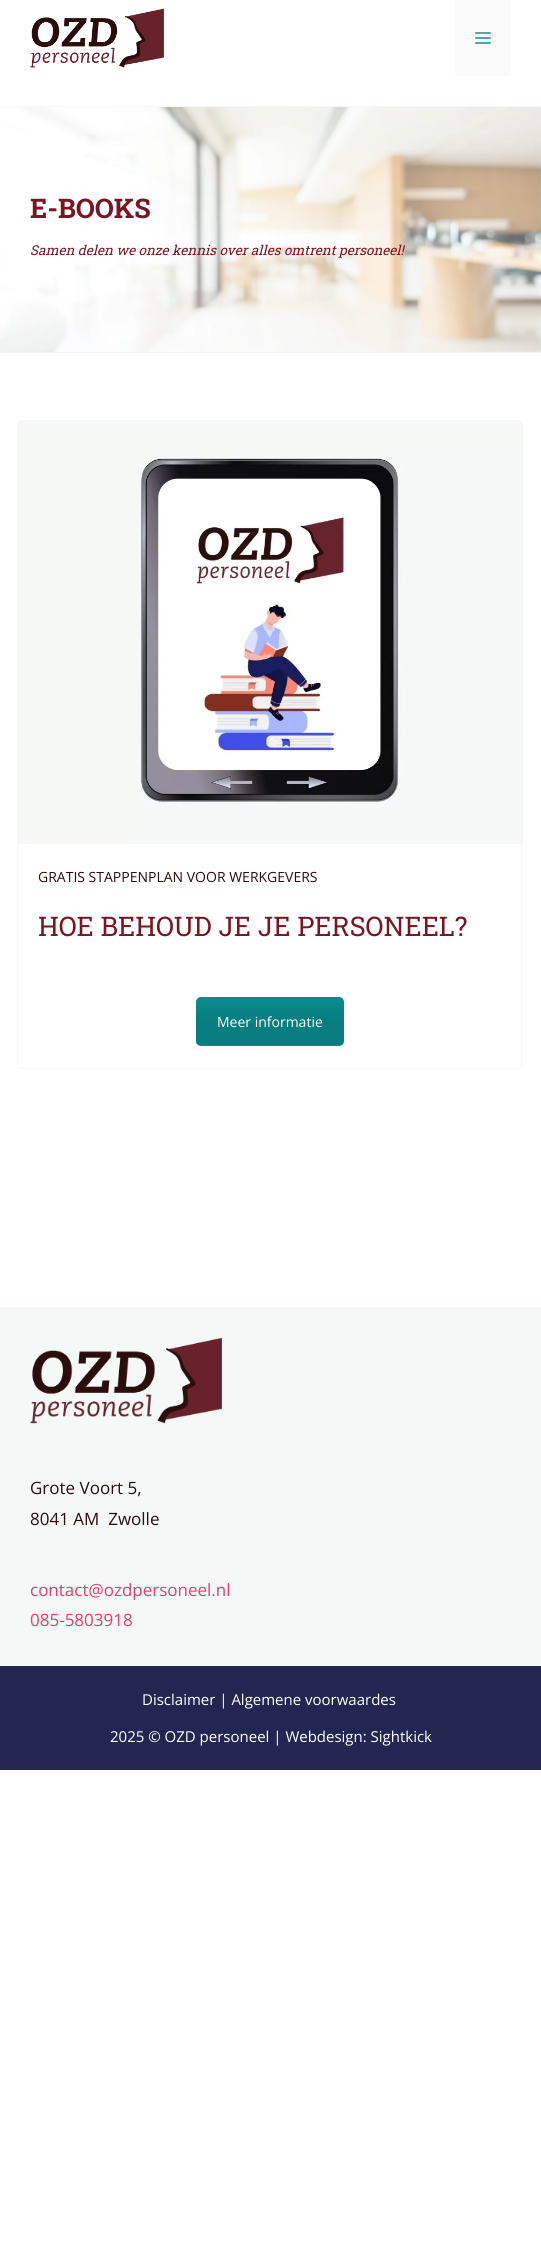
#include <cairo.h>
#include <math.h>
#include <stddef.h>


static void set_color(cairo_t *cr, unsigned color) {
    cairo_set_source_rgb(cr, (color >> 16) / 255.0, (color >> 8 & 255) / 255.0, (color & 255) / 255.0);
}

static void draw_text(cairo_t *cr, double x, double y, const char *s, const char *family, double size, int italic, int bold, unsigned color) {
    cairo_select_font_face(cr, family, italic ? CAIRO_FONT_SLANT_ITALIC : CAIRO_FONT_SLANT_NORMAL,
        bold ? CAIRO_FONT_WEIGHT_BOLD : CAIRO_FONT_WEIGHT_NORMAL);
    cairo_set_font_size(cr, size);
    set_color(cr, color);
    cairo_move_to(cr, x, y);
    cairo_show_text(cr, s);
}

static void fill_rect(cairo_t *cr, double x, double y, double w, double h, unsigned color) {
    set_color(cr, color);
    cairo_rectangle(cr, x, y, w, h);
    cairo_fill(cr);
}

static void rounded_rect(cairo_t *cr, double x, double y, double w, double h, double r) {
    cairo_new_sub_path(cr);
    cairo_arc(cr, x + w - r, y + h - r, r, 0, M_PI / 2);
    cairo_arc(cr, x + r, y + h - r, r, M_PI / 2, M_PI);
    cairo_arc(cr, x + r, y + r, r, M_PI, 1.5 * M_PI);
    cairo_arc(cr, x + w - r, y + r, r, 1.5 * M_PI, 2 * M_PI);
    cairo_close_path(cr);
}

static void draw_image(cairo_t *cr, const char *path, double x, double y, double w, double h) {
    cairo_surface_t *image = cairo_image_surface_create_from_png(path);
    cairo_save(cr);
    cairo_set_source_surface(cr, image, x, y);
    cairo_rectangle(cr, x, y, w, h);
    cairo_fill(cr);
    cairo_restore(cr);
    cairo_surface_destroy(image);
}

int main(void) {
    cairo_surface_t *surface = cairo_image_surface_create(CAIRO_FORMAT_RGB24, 541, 2245);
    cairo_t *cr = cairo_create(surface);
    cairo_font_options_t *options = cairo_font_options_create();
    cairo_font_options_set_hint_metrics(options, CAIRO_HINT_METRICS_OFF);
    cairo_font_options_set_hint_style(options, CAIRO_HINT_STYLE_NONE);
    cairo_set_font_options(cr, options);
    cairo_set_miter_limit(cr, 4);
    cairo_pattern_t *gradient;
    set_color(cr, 0xFFFFFF);
    cairo_paint(cr);
    draw_image(cr, "assets/img1.png", 30, 8, 134, 60);
    fill_rect(cr, 455, 0, 56, 76, 0xFAFAFA);
    draw_image(cr, "assets/img2.png", 475, 32, 16, 12);
    draw_image(cr, "assets/img3.png", 0, 107, 541, 245);
    fill_rect(cr, 0, 106, 541, 1, 0xF4F9F8);
    fill_rect(cr, 0, 352, 541, 1, 0xF4F9F8);
    draw_text(cr, 30, 218, "E-BOOKS", "Roboto Slab", 27, 0, 1, 0x781621);
    draw_text(cr, 30, 255, "Samen delen we onze kennis over alles omtrent personeel!", "Roboto Slab", 13.5, 1, 0, 0x781621);
    rounded_rect(cr, 17.5, 420.5, 505, 648, 4.5);
    set_color(cr, 0xF5F8F7);
    cairo_set_line_width(cr, 1);
    cairo_stroke(cr);
    draw_image(cr, "assets/img4.png", 18, 421, 504, 423);
    draw_text(cr, 38, 882, "GRATIS STAPPENPLAN VOOR WERKGEVERS", "Open Sans", 14, 0, 0, 0x2C0D0E);
    draw_text(cr, 38, 936, "HOE BEHOUD JE JE PERSONEEL?", "Roboto Slab", 27, 0, 0, 0x781621);
    set_color(cr, 0x0A8B8D);
    rounded_rect(cr, 196, 997, 148, 49, 5);
    cairo_fill(cr);
    cairo_save(cr);
    rounded_rect(cr, 196, 997, 148, 49, 5);
    cairo_clip(cr);
    gradient = cairo_pattern_create_linear(343, 998, 343, 1045);
    cairo_pattern_add_color_stop_rgba(gradient, 0, 0, 0, 0, 0);
    cairo_pattern_add_color_stop_rgba(gradient, 0.5, 0, 0, 0, 0.1);
    cairo_pattern_add_color_stop_rgba(gradient, 1, 0, 0, 0, 0.1);
    cairo_set_source(cr, gradient);
    cairo_pattern_destroy(gradient);
    cairo_rectangle(cr, 196, 1003, 148, 42);
    cairo_fill(cr);
    cairo_restore(cr);
    draw_text(cr, 217, 1027, "Meer informatie", "Open Sans", 14, 0, 0, 0xFFFFFF);
    fill_rect(cr, 0, 1307, 541, 359, 0xF4F9F8);
    draw_image(cr, "assets/img5.png", 30, 1337, 192, 87);
    draw_text(cr, 30, 1494, "Grote Voort 5,", "Open Sans", 17, 0, 0, 0x2C0D0E);
    draw_text(cr, 30, 1525, "8041 AM  Zwolle", "Open Sans", 17, 0, 0, 0x2C0D0E);
    draw_text(cr, 30, 1596, "contact@ozdpersoneel.nl", "Open Sans", 17, 0, 0, 0xE83B68);
    draw_text(cr, 30, 1626, "085-5803918", "Open Sans", 17, 0, 0, 0xE83B68);
    fill_rect(cr, 0, 1666, 541, 104, 0x222651);
    draw_text(cr, 142, 1705, "Disclaimer | Algemene voorwaardes", "Open Sans", 15, 0, 0, 0xFFFFFF);
    draw_text(cr, 110, 1742, "2025 © OZD personeel | Webdesign: Sightkick", "Open Sans", 15, 0, 0, 0xFFFFFF);
    cairo_surface_write_to_png(surface, "output.png");
    cairo_font_options_destroy(options);
    cairo_destroy(cr);
    cairo_surface_destroy(surface);
    return 0;
}
